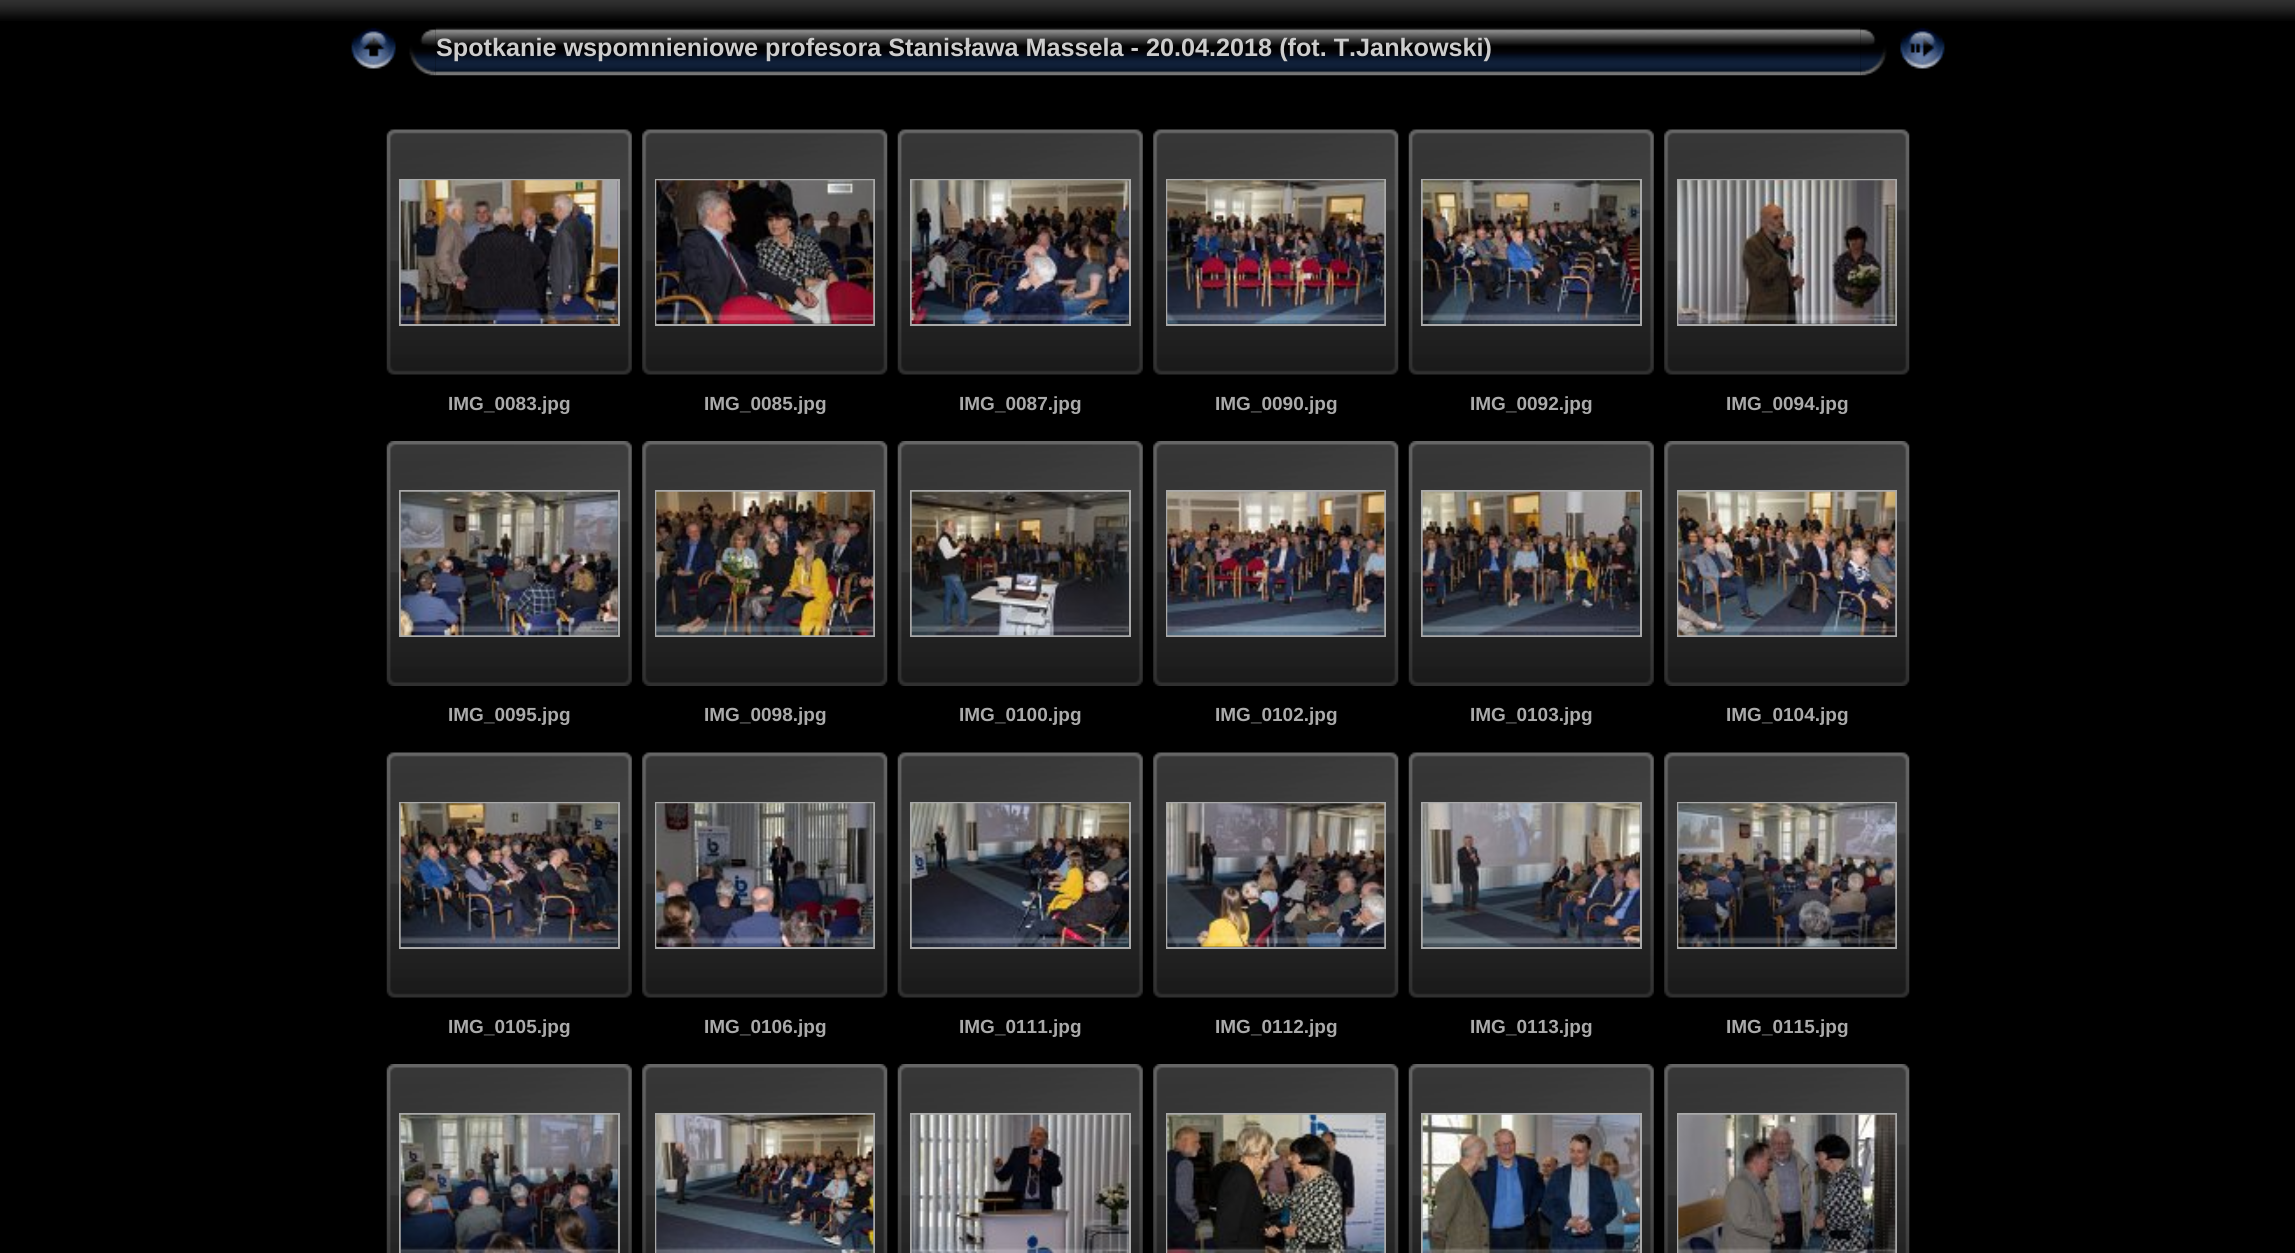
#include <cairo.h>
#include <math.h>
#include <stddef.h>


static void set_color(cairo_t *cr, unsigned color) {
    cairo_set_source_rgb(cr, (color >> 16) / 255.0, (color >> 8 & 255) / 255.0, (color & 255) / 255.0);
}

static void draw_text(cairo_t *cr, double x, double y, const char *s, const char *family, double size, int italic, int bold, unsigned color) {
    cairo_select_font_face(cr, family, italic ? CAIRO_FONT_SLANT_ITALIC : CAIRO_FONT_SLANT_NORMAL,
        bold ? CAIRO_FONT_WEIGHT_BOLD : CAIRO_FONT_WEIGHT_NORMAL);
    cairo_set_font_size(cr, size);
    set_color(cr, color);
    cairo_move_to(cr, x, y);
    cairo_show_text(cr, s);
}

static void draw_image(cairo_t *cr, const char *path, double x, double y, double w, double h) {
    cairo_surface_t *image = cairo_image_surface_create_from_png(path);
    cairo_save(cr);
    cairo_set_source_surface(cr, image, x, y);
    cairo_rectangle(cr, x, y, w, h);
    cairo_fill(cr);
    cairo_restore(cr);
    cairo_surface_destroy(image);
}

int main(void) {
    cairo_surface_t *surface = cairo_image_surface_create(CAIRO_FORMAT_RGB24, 2295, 1253);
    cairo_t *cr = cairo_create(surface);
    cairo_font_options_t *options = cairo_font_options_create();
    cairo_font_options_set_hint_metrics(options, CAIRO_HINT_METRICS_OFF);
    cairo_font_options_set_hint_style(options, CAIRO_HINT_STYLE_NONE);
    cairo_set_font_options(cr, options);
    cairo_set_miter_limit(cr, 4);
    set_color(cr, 0x000000);
    cairo_paint(cr);
    draw_image(cr, "assets/img1.png", 0, 0, 2295, 21);
    draw_image(cr, "assets/img2.png", 351, 27, 45, 42);
    draw_image(cr, "assets/img4.png", 435, 27, 1426, 49);
    draw_image(cr, "assets/img3.png", 409, 29, 27, 47);
    draw_text(cr, 436, 56, "Spotkanie wspomnieniowe profesora Stanisława Massela - 20.04.2018 (fot. T.Jankowski)", "Liberation Sans", 25.2, 0, 1, 0xCCCCCC);
    draw_image(cr, "assets/img5.png", 1860, 28, 27, 48);
    draw_image(cr, "assets/img6.png", 1900, 27, 45, 42);
    draw_image(cr, "assets/img7.png", 386, 129, 246, 246);
    cairo_rectangle(cr, 400, 180, 219, 145);
    set_color(cr, 0xAAAAAA);
    cairo_stroke(cr);
    draw_image(cr, "assets/img8.png", 400, 180, 218, 144);
    draw_text(cr, 448, 410, "IMG_0083.jpg", "Liberation Sans", 19, 0, 1, 0xAAAAAA);
    draw_image(cr, "assets/img9.png", 642, 129, 246, 246);
    cairo_rectangle(cr, 656, 180, 218, 145);
    cairo_stroke(cr);
    draw_image(cr, "assets/img10.png", 656, 180, 218, 144);
    draw_text(cr, 704, 410, "IMG_0085.jpg", "Liberation Sans", 19, 0, 1, 0xAAAAAA);
    draw_image(cr, "assets/img11.png", 897, 129, 246, 246);
    cairo_rectangle(cr, 911, 180, 219, 145);
    cairo_stroke(cr);
    draw_image(cr, "assets/img12.png", 911, 180, 218, 144);
    draw_text(cr, 959, 410, "IMG_0087.jpg", "Liberation Sans", 19, 0, 1, 0xAAAAAA);
    draw_image(cr, "assets/img9.png", 1153, 129, 246, 246);
    cairo_rectangle(cr, 1167, 180, 218, 145);
    cairo_stroke(cr);
    draw_image(cr, "assets/img13.png", 1167, 180, 218, 144);
    draw_text(cr, 1215, 410, "IMG_0090.jpg", "Liberation Sans", 19, 0, 1, 0xAAAAAA);
    draw_image(cr, "assets/img11.png", 1408, 129, 246, 246);
    cairo_rectangle(cr, 1422, 180, 219, 145);
    cairo_stroke(cr);
    draw_image(cr, "assets/img14.png", 1422, 180, 218, 144);
    draw_text(cr, 1470, 410, "IMG_0092.jpg", "Liberation Sans", 19, 0, 1, 0xAAAAAA);
    draw_image(cr, "assets/img15.png", 1664, 129, 246, 246);
    cairo_rectangle(cr, 1678, 180, 218, 145);
    cairo_stroke(cr);
    draw_image(cr, "assets/img16.png", 1678, 180, 218, 144);
    draw_text(cr, 1726, 410, "IMG_0094.jpg", "Liberation Sans", 19, 0, 1, 0xAAAAAA);
    draw_image(cr, "assets/img17.png", 386, 441, 246, 245);
    cairo_rectangle(cr, 400, 491, 219, 145);
    cairo_stroke(cr);
    draw_image(cr, "assets/img18.png", 400, 491, 218, 145);
    draw_text(cr, 448, 721, "IMG_0095.jpg", "Liberation Sans", 19, 0, 1, 0xAAAAAA);
    draw_image(cr, "assets/img19.png", 642, 441, 246, 245);
    cairo_rectangle(cr, 656, 491, 218, 145);
    cairo_stroke(cr);
    draw_image(cr, "assets/img20.png", 656, 491, 218, 145);
    draw_text(cr, 704, 721, "IMG_0098.jpg", "Liberation Sans", 19, 0, 1, 0xAAAAAA);
    draw_image(cr, "assets/img21.png", 897, 441, 246, 245);
    cairo_rectangle(cr, 911, 491, 219, 145);
    cairo_stroke(cr);
    draw_image(cr, "assets/img22.png", 911, 491, 218, 145);
    draw_text(cr, 959, 721, "IMG_0100.jpg", "Liberation Sans", 19, 0, 1, 0xAAAAAA);
    draw_image(cr, "assets/img19.png", 1153, 441, 246, 245);
    cairo_rectangle(cr, 1167, 491, 218, 145);
    cairo_stroke(cr);
    draw_image(cr, "assets/img23.png", 1167, 491, 218, 145);
    draw_text(cr, 1215, 721, "IMG_0102.jpg", "Liberation Sans", 19, 0, 1, 0xAAAAAA);
    draw_image(cr, "assets/img21.png", 1408, 441, 246, 245);
    cairo_rectangle(cr, 1422, 491, 219, 145);
    cairo_stroke(cr);
    draw_image(cr, "assets/img24.png", 1422, 491, 218, 145);
    draw_text(cr, 1470, 721, "IMG_0103.jpg", "Liberation Sans", 19, 0, 1, 0xAAAAAA);
    draw_image(cr, "assets/img25.png", 1664, 441, 246, 245);
    cairo_rectangle(cr, 1678, 491, 218, 145);
    cairo_stroke(cr);
    draw_image(cr, "assets/img26.png", 1678, 491, 218, 145);
    draw_text(cr, 1726, 721, "IMG_0104.jpg", "Liberation Sans", 19, 0, 1, 0xAAAAAA);
    draw_image(cr, "assets/img7.png", 386, 752, 246, 246);
    cairo_rectangle(cr, 400, 803, 219, 145);
    cairo_stroke(cr);
    draw_image(cr, "assets/img27.png", 400, 803, 218, 144);
    draw_text(cr, 448, 1033, "IMG_0105.jpg", "Liberation Sans", 19, 0, 1, 0xAAAAAA);
    draw_image(cr, "assets/img9.png", 642, 752, 246, 246);
    cairo_rectangle(cr, 656, 803, 218, 145);
    cairo_stroke(cr);
    draw_image(cr, "assets/img28.png", 656, 803, 218, 144);
    draw_text(cr, 704, 1033, "IMG_0106.jpg", "Liberation Sans", 19, 0, 1, 0xAAAAAA);
    draw_image(cr, "assets/img11.png", 897, 752, 246, 246);
    cairo_rectangle(cr, 911, 803, 219, 145);
    cairo_stroke(cr);
    draw_image(cr, "assets/img29.png", 911, 803, 218, 144);
    draw_text(cr, 959, 1033, "IMG_0111.jpg", "Liberation Sans", 19, 0, 1, 0xAAAAAA);
    draw_image(cr, "assets/img9.png", 1153, 752, 246, 246);
    cairo_rectangle(cr, 1167, 803, 218, 145);
    cairo_stroke(cr);
    draw_image(cr, "assets/img30.png", 1167, 803, 218, 144);
    draw_text(cr, 1215, 1033, "IMG_0112.jpg", "Liberation Sans", 19, 0, 1, 0xAAAAAA);
    draw_image(cr, "assets/img11.png", 1408, 752, 246, 246);
    cairo_rectangle(cr, 1422, 803, 219, 145);
    cairo_stroke(cr);
    draw_image(cr, "assets/img31.png", 1422, 803, 218, 144);
    draw_text(cr, 1470, 1033, "IMG_0113.jpg", "Liberation Sans", 19, 0, 1, 0xAAAAAA);
    draw_image(cr, "assets/img15.png", 1664, 752, 246, 246);
    cairo_rectangle(cr, 1678, 803, 218, 145);
    cairo_stroke(cr);
    draw_image(cr, "assets/img32.png", 1678, 803, 218, 144);
    draw_text(cr, 1726, 1033, "IMG_0115.jpg", "Liberation Sans", 19, 0, 1, 0xAAAAAA);
    draw_image(cr, "assets/img33.png", 386, 1064, 246, 189);
    cairo_rectangle(cr, 400, 1114, 219, 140);
    cairo_stroke(cr);
    draw_image(cr, "assets/img34.png", 400, 1114, 218, 139);
    draw_image(cr, "assets/img35.png", 642, 1064, 246, 189);
    cairo_rectangle(cr, 656, 1114, 218, 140);
    cairo_stroke(cr);
    draw_image(cr, "assets/img36.png", 656, 1114, 218, 139);
    draw_image(cr, "assets/img37.png", 897, 1064, 246, 189);
    cairo_rectangle(cr, 911, 1114, 219, 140);
    cairo_stroke(cr);
    draw_image(cr, "assets/img38.png", 911, 1114, 218, 139);
    draw_image(cr, "assets/img35.png", 1153, 1064, 246, 189);
    cairo_rectangle(cr, 1167, 1114, 218, 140);
    cairo_stroke(cr);
    draw_image(cr, "assets/img39.png", 1167, 1114, 218, 139);
    draw_image(cr, "assets/img37.png", 1408, 1064, 246, 189);
    cairo_rectangle(cr, 1422, 1114, 219, 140);
    cairo_stroke(cr);
    draw_image(cr, "assets/img40.png", 1422, 1114, 218, 139);
    draw_image(cr, "assets/img41.png", 1664, 1064, 246, 189);
    cairo_rectangle(cr, 1678, 1114, 218, 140);
    cairo_stroke(cr);
    draw_image(cr, "assets/img42.png", 1678, 1114, 218, 139);
    cairo_surface_write_to_png(surface, "output.png");
    cairo_font_options_destroy(options);
    cairo_destroy(cr);
    cairo_surface_destroy(surface);
    return 0;
}
